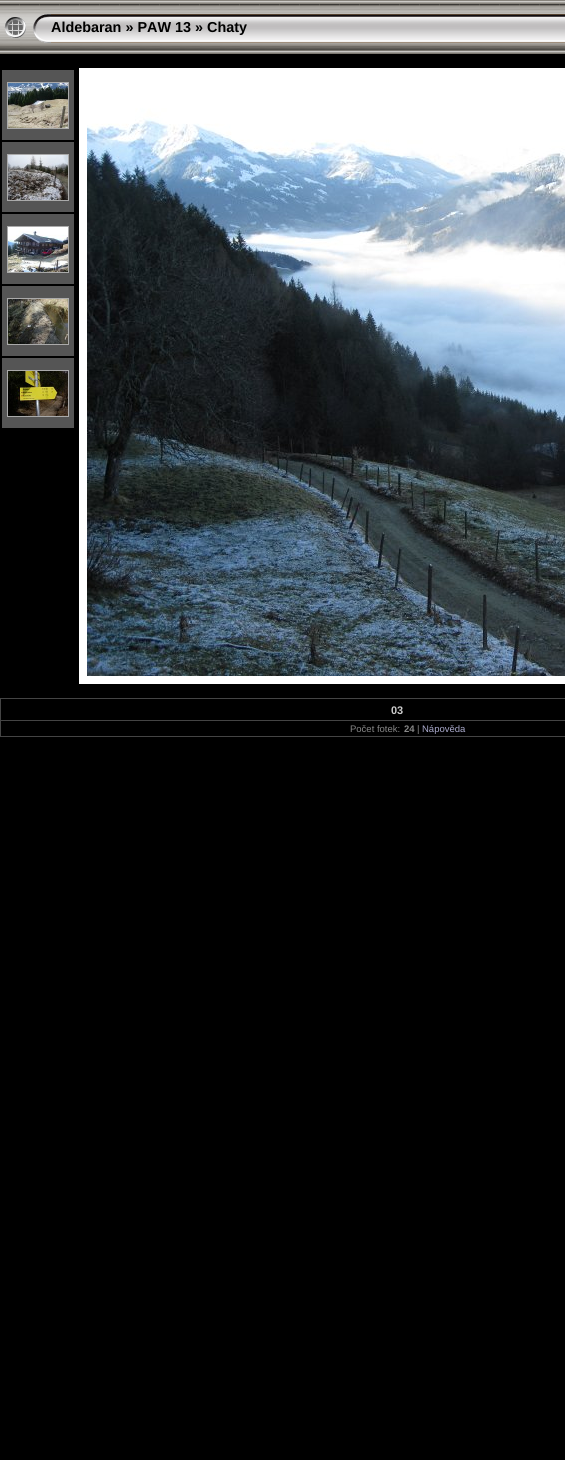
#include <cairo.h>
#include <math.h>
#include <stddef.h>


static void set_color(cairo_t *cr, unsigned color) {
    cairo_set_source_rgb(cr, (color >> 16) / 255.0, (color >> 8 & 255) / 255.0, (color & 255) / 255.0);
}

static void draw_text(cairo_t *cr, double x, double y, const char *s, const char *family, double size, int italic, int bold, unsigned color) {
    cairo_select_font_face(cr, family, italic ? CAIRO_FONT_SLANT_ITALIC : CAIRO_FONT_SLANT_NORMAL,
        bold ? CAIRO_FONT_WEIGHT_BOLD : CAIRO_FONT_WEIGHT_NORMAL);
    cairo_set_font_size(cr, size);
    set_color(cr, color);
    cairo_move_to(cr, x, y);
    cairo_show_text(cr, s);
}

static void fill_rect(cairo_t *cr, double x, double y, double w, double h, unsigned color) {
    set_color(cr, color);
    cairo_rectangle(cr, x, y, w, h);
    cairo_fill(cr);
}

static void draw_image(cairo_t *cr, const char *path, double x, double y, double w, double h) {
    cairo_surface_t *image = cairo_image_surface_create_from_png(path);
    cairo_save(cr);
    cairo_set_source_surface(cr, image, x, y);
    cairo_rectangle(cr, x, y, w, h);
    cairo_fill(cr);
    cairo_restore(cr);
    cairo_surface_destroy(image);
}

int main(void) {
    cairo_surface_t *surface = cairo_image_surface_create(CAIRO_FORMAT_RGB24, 565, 1460);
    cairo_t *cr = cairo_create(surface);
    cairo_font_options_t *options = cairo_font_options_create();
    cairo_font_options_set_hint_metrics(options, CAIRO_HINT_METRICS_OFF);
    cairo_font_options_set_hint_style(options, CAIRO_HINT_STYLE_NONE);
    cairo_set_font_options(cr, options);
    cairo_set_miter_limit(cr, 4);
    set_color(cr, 0x000000);
    cairo_paint(cr);
    draw_image(cr, "assets/img1.png", 0, 0, 565, 54);
    draw_image(cr, "assets/img2.png", 4, 17, 22, 21);
    draw_image(cr, "assets/img3.png", 33, 14, 18, 29);
    draw_image(cr, "assets/img4.png", 51, 14, 514, 29);
    draw_text(cr, 51, 32, "Aldebaran » PAW 13 » Chaty", "Liberation Sans", 14.4, 0, 1, 0x000000);
    fill_rect(cr, 2, 70, 72, 70, 0x555555);
    cairo_rectangle(cr, 7.5, 82.5, 61, 46);
    set_color(cr, 0xAAAAAA);
    cairo_set_line_width(cr, 1);
    cairo_stroke(cr);
    draw_image(cr, "assets/img5.png", 8, 83, 60, 45);
    fill_rect(cr, 2, 142, 72, 70, 0x555555);
    cairo_rectangle(cr, 7.5, 154.5, 61, 46);
    set_color(cr, 0xAAAAAA);
    cairo_stroke(cr);
    draw_image(cr, "assets/img6.png", 8, 155, 60, 45);
    fill_rect(cr, 2, 214, 72, 70, 0x555555);
    cairo_rectangle(cr, 7.5, 226.5, 61, 46);
    set_color(cr, 0xAAAAAA);
    cairo_stroke(cr);
    draw_image(cr, "assets/img7.png", 8, 227, 60, 45);
    fill_rect(cr, 2, 286, 72, 70, 0x555555);
    cairo_rectangle(cr, 7.5, 298.5, 61, 46);
    set_color(cr, 0xAAAAAA);
    cairo_stroke(cr);
    draw_image(cr, "assets/img8.png", 8, 299, 60, 45);
    fill_rect(cr, 2, 358, 72, 70, 0x555555);
    cairo_rectangle(cr, 7.5, 370.5, 61, 46);
    set_color(cr, 0xAAAAAA);
    cairo_stroke(cr);
    draw_image(cr, "assets/img9.png", 8, 371, 60, 45);
    cairo_rectangle(cr, 83, 72, 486, 608);
    set_color(cr, 0xFFFFFF);
    cairo_set_line_width(cr, 8);
    cairo_stroke(cr);
    draw_image(cr, "assets/img10.png", 87, 76, 478, 600);
    fill_rect(cr, 0, 698, 565, 1, 0x444444);
    fill_rect(cr, 0, 736, 565, 1, 0x444444);
    fill_rect(cr, 0, 698, 1, 39, 0x444444);
    draw_text(cr, 391, 714, "03", "Liberation Sans", 11, 0, 1, 0xCCCCCC);
    fill_rect(cr, 0, 720, 565, 1, 0x444444);
    draw_text(cr, 350, 732, "Počet fotek:", "Liberation Sans", 9.5, 0, 0, 0x888888);
    draw_text(cr, 404, 732, "24", "Liberation Sans", 9.5, 0, 1, 0x888888);
    draw_text(cr, 417, 732, "|", "Liberation Sans", 9.5, 0, 0, 0x888888);
    draw_text(cr, 422, 732, "Nápověda", "Liberation Sans", 9.5, 0, 0, 0xAAAACC);
    cairo_surface_write_to_png(surface, "output.png");
    cairo_font_options_destroy(options);
    cairo_destroy(cr);
    cairo_surface_destroy(surface);
    return 0;
}
